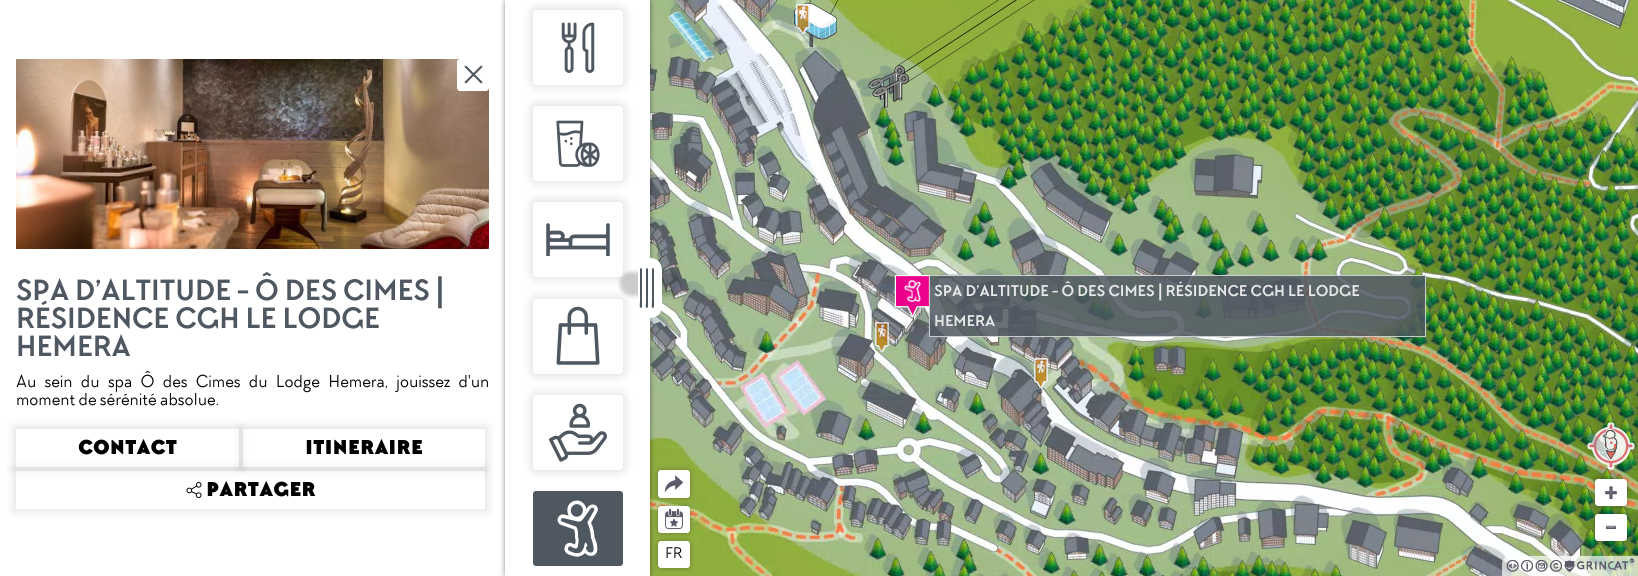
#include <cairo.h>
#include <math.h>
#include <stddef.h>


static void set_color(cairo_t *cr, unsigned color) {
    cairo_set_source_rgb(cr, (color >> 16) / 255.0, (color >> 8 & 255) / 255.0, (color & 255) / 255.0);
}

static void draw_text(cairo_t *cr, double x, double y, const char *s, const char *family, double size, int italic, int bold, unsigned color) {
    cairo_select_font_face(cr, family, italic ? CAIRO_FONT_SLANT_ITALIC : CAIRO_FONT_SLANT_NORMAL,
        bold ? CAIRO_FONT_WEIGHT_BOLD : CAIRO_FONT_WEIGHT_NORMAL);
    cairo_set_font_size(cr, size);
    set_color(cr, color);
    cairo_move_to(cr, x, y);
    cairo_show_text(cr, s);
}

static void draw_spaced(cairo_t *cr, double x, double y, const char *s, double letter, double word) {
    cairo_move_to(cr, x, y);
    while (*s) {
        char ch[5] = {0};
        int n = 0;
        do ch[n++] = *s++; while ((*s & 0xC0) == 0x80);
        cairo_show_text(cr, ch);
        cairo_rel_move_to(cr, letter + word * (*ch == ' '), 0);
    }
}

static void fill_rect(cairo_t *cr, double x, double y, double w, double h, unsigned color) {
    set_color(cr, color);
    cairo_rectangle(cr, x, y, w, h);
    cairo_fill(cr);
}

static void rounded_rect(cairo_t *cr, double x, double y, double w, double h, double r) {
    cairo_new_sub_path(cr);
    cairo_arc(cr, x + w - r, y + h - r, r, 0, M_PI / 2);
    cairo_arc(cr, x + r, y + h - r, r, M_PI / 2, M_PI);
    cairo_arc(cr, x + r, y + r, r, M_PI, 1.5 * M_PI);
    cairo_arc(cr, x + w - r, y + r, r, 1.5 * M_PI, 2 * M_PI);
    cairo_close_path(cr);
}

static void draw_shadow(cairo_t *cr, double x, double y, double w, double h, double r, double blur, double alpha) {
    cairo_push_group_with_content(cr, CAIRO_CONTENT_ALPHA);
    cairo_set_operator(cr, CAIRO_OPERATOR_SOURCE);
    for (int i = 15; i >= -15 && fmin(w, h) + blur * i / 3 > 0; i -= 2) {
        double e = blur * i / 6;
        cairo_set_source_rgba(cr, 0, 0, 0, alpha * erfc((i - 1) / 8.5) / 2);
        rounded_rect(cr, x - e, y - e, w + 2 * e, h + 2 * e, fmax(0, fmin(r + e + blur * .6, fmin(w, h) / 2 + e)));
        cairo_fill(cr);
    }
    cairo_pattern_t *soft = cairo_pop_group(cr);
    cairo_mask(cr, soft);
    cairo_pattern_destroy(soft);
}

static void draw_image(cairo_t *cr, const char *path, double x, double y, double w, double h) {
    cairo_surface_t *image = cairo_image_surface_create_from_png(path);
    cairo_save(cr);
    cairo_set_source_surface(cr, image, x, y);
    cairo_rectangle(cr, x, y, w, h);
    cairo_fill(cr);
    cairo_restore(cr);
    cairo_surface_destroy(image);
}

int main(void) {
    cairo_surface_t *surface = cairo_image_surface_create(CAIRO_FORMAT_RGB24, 1638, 576);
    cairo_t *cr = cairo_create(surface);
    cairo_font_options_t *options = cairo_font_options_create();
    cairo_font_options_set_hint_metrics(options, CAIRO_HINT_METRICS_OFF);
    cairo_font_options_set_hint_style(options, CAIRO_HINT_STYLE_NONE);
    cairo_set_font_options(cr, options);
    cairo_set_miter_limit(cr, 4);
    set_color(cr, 0xFFFFFF);
    cairo_paint(cr);
    draw_image(cr, "assets/img1.png", 16, 59, 473, 190);
    set_color(cr, 0xFFFFFF);
    cairo_new_path(cr);
    cairo_move_to(cr, 460, 59);
    cairo_line_to(cr, 489, 59);
    cairo_line_to(cr, 489, 88);
    cairo_curve_to(cr, 489, 89.5, 487.5, 91, 486, 91);
    cairo_line_to(cr, 460, 91);
    cairo_curve_to(cr, 458.5, 91, 457, 89.5, 457, 88);
    cairo_line_to(cr, 457, 62);
    cairo_curve_to(cr, 457, 60.5, 458.5, 59, 460, 59);
    cairo_close_path(cr);
    cairo_fill(cr);
    set_color(cr, 0x4F5761);
    cairo_new_path(cr);
    cairo_move_to(cr, 465, 66);
    cairo_curve_to(cr, 465.5, 65.5, 466, 65.5, 466.5, 66);
    cairo_line_to(cr, 482, 81.5);
    cairo_curve_to(cr, 482.5, 82, 482.5, 82.5, 482, 83);
    cairo_curve_to(cr, 481.5, 83.5, 481, 83.5, 480.5, 83);
    cairo_line_to(cr, 465, 67.5);
    cairo_curve_to(cr, 464.5, 67, 464.5, 66.5, 465, 66);
    cairo_close_path(cr);
    cairo_fill(cr);
    cairo_new_path(cr);
    cairo_move_to(cr, 482, 66);
    cairo_curve_to(cr, 482.5, 66.5, 482.5, 67, 482, 67.5);
    cairo_line_to(cr, 466.5, 83);
    cairo_curve_to(cr, 466, 83.5, 465.5, 83.5, 465, 83);
    cairo_curve_to(cr, 464.5, 82.5, 464.5, 82, 465, 81.5);
    cairo_line_to(cr, 480.5, 66);
    cairo_curve_to(cr, 481, 65.5, 481.5, 65.5, 482, 66);
    cairo_close_path(cr);
    cairo_fill(cr);
    draw_text(cr, 16, 300, "SPA D’ALTITUDE - Ô DES CIMES |", "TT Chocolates", 30, 0, 1, 0x4F5761);
    draw_text(cr, 16, 328, "RÉSIDENCE CGH LE LODGE", "TT Chocolates", 30, 0, 1, 0x4F5761);
    draw_text(cr, 16, 356, "HEMERA", "TT Chocolates", 30, 0, 1, 0x4F5761);
    cairo_select_font_face(cr, "TT Chocolates", CAIRO_FONT_SLANT_NORMAL, CAIRO_FONT_WEIGHT_NORMAL);
    cairo_set_font_size(cr, 18);
    set_color(cr, 0x000000);
    draw_spaced(cr, 16, 387, "Au sein du spa Ô des Cimes du Lodge Hemera, jouissez d'un", 0, 5);
    draw_text(cr, 16, 405, "moment de sérénité absolue.", "TT Chocolates", 18, 0, 0, 0x000000);
    cairo_save(cr);
    cairo_set_fill_rule(cr, CAIRO_FILL_RULE_EVEN_ODD);
    cairo_new_path(cr);
    cairo_move_to(cr, 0, 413);
    cairo_line_to(cr, 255, 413);
    cairo_line_to(cr, 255, 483);
    cairo_line_to(cr, 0, 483);
    cairo_close_path(cr);
    cairo_move_to(cr, 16, 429);
    cairo_line_to(cr, 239, 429);
    cairo_line_to(cr, 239, 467);
    cairo_line_to(cr, 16, 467);
    cairo_close_path(cr);
    cairo_clip(cr);
    set_color(cr, 0x000000);
    draw_shadow(cr, 13, 426, 229, 44, 0, 4, 0.1);
    cairo_restore(cr);
    draw_text(cr, 78, 454, "CONTACT", "TT Chocolates Black", 20, 0, 0, 0x000000);
    cairo_save(cr);
    cairo_set_fill_rule(cr, CAIRO_FILL_RULE_EVEN_ODD);
    cairo_new_path(cr);
    cairo_move_to(cr, 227, 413);
    cairo_line_to(cr, 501, 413);
    cairo_line_to(cr, 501, 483);
    cairo_line_to(cr, 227, 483);
    cairo_close_path(cr);
    cairo_move_to(cr, 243, 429);
    cairo_line_to(cr, 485, 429);
    cairo_line_to(cr, 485, 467);
    cairo_line_to(cr, 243, 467);
    cairo_close_path(cr);
    cairo_clip(cr);
    set_color(cr, 0x000000);
    draw_shadow(cr, 240, 426, 248, 44, 0, 4, 0.1);
    cairo_restore(cr);
    draw_text(cr, 305, 454, "ITINERAIRE", "TT Chocolates Black", 20, 0, 0, 0x000000);
    cairo_save(cr);
    cairo_set_fill_rule(cr, CAIRO_FILL_RULE_EVEN_ODD);
    cairo_new_path(cr);
    cairo_move_to(cr, 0, 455);
    cairo_line_to(cr, 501, 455);
    cairo_line_to(cr, 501, 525);
    cairo_line_to(cr, 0, 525);
    cairo_close_path(cr);
    cairo_move_to(cr, 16, 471);
    cairo_line_to(cr, 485, 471);
    cairo_line_to(cr, 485, 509);
    cairo_line_to(cr, 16, 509);
    cairo_close_path(cr);
    cairo_clip(cr);
    set_color(cr, 0x000000);
    draw_shadow(cr, 13, 468, 475, 44, 0, 4, 0.1);
    cairo_restore(cr);
    draw_image(cr, "assets/img2.png", 186, 482, 16, 16);
    draw_text(cr, 206, 496, "PARTAGER", "TT Chocolates Black", 20, 0, 0, 0x000000);
    draw_image(cr, "assets/img9.png", 650, 0, 988, 576);
    cairo_save(cr);
    cairo_set_fill_rule(cr, CAIRO_FILL_RULE_EVEN_ODD);
    cairo_new_path(cr);
    cairo_move_to(cr, 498, 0);
    cairo_line_to(cr, 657, 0);
    cairo_line_to(cr, 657, 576);
    cairo_line_to(cr, 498, 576);
    cairo_close_path(cr);
    cairo_move_to(cr, 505, 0);
    cairo_line_to(cr, 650, 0);
    cairo_line_to(cr, 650, 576);
    cairo_line_to(cr, 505, 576);
    cairo_close_path(cr);
    cairo_clip(cr);
    set_color(cr, 0x000000);
    draw_shadow(cr, 505, -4, 145, 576, 0, 2, 0.2);
    cairo_restore(cr);
    set_color(cr, 0x000000);
    draw_shadow(cr, 657, 469, 34, 30, 4, 2, 0.2);
    set_color(cr, 0xFFFFFF);
    rounded_rect(cr, 658, 470, 32, 28, 3);
    cairo_fill(cr);
    set_color(cr, 0x000000);
    draw_shadow(cr, 657, 505, 34, 29, 4, 2, 0.2);
    set_color(cr, 0xFFFFFF);
    rounded_rect(cr, 658, 506, 32, 27, 3);
    cairo_fill(cr);
    set_color(cr, 0x000000);
    draw_shadow(cr, 657, 540, 34, 29, 4, 2, 0.2);
    set_color(cr, 0xFFFFFF);
    rounded_rect(cr, 658, 541, 32, 27, 3);
    cairo_fill(cr);
    cairo_save(cr);
    cairo_set_fill_rule(cr, CAIRO_FILL_RULE_EVEN_ODD);
    cairo_new_path(cr);
    cairo_move_to(cr, 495, 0);
    cairo_line_to(cr, 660, 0);
    cairo_line_to(cr, 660, 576);
    cairo_line_to(cr, 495, 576);
    cairo_close_path(cr);
    cairo_move_to(cr, 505, 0);
    cairo_line_to(cr, 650, 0);
    cairo_line_to(cr, 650, 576);
    cairo_line_to(cr, 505, 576);
    cairo_close_path(cr);
    cairo_clip(cr);
    set_color(cr, 0x000000);
    draw_shadow(cr, 505, 3, 145, 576, 0, 3, 0.3);
    cairo_restore(cr);
    set_color(cr, 0x000000);
    draw_shadow(cr, 530, 7, 96, 81, 6, 4, 0.1);
    set_color(cr, 0xFFFFFF);
    rounded_rect(cr, 533, 10, 90, 75, 3);
    cairo_fill(cr);
    draw_image(cr, "assets/img3.png", 561, 22, 34, 51);
    set_color(cr, 0x000000);
    draw_shadow(cr, 530, 103, 96, 81, 6, 4, 0.1);
    set_color(cr, 0xFFFFFF);
    rounded_rect(cr, 533, 106, 90, 75, 3);
    cairo_fill(cr);
    draw_image(cr, "assets/img4.png", 556, 120, 44, 47);
    set_color(cr, 0x000000);
    draw_shadow(cr, 530, 199, 96, 81, 6, 4, 0.1);
    set_color(cr, 0xFFFFFF);
    rounded_rect(cr, 533, 202, 90, 75, 3);
    cairo_fill(cr);
    draw_image(cr, "assets/img5.png", 546, 223, 64, 33);
    set_color(cr, 0x000000);
    draw_shadow(cr, 530, 296, 96, 81, 6, 4, 0.1);
    set_color(cr, 0xFFFFFF);
    rounded_rect(cr, 533, 299, 90, 75, 3);
    cairo_fill(cr);
    draw_image(cr, "assets/img6.png", 556, 306, 44, 59);
    set_color(cr, 0x000000);
    draw_shadow(cr, 530, 392, 96, 81, 6, 4, 0.1);
    set_color(cr, 0xFFFFFF);
    rounded_rect(cr, 533, 395, 90, 75, 3);
    cairo_fill(cr);
    draw_image(cr, "assets/img7.png", 549, 403, 58, 59);
    set_color(cr, 0x4F5761);
    rounded_rect(cr, 533, 491, 90, 75, 3);
    cairo_fill(cr);
    draw_image(cr, "assets/img8.png", 557, 500, 41, 57);
    set_color(cr, 0x000000);
    draw_shadow(cr, 620, 272, 60, 24, 12, 2, 0.2);
    set_color(cr, 0xFFFFFF);
    cairo_new_path(cr);
    cairo_move_to(cr, 662, 270);
    cairo_line_to(cr, 662, 306);
    cairo_curve_to(cr, 662, 313, 657, 318, 650, 318);
    cairo_curve_to(cr, 643, 318, 638, 313, 638, 306);
    cairo_line_to(cr, 638, 270);
    cairo_curve_to(cr, 638, 263, 643, 258, 650, 258);
    cairo_curve_to(cr, 657, 258, 662, 263, 662, 270);
    cairo_close_path(cr);
    cairo_fill(cr);
    set_color(cr, 0x4F5761);
    cairo_new_path(cr);
    cairo_move_to(cr, 654, 269);
    cairo_line_to(cr, 654, 307);
    cairo_line_to(cr, 653, 308);
    cairo_curve_to(cr, 651, 308, 652, 304, 652, 301);
    cairo_line_to(cr, 652, 269);
    cairo_curve_to(cr, 652, 268, 654, 268, 654, 269);
    cairo_close_path(cr);
    cairo_move_to(cr, 648, 269);
    cairo_line_to(cr, 648, 307);
    cairo_line_to(cr, 647, 308);
    cairo_curve_to(cr, 645, 308, 646, 304, 646, 301);
    cairo_line_to(cr, 646, 269);
    cairo_curve_to(cr, 646, 268, 648, 268, 648, 269);
    cairo_close_path(cr);
    cairo_move_to(cr, 642, 269);
    cairo_line_to(cr, 642, 307);
    cairo_line_to(cr, 641, 308);
    cairo_curve_to(cr, 639, 308, 640, 304, 640, 301);
    cairo_line_to(cr, 640, 269);
    cairo_curve_to(cr, 640, 268, 642, 268, 642, 269);
    cairo_close_path(cr);
    cairo_fill(cr);
    draw_image(cr, "assets/img10.png", 872, 275, 58, 42);
    draw_image(cr, "assets/img11.png", 904, 280, 17, 22);
    cairo_set_source_rgba(cr, 0.31, 0.341, 0.38, 0.85);
    cairo_rectangle(cr, 929, 275, 497, 62);
    cairo_fill(cr);
    cairo_rectangle(cr, 929.5, 275.5, 496, 61);
    cairo_set_source_rgba(cr, 0.875, 0.875, 0.89, 0.85);
    cairo_set_line_width(cr, 1);
    cairo_stroke(cr);
    draw_text(cr, 934, 296, "SPA D’ALTITUDE - Ô DES CIMES | RÉSIDENCE CGH LE LODGE", "TT Chocolates", 16, 0, 1, 0xE6E8E8);
    draw_text(cr, 934, 326, "HEMERA", "TT Chocolates", 16, 0, 1, 0xE6E8E8);
    set_color(cr, 0x000000);
    draw_shadow(cr, 1594, 478, 34, 29, 4, 2, 0.2);
    set_color(cr, 0xFFFFFF);
    rounded_rect(cr, 1595, 479, 32, 27, 3);
    cairo_fill(cr);
    draw_image(cr, "assets/img12.png", 1605, 486, 12, 13);
    draw_text(cr, 1608, 496, "+", "TT Chocolates", 16, 0, 1, 0x6E6D7B);
    set_color(cr, 0x000000);
    draw_shadow(cr, 1594, 513, 34, 29, 4, 2, 0.2);
    set_color(cr, 0xFFFFFF);
    rounded_rect(cr, 1595, 514, 32, 27, 3);
    cairo_fill(cr);
    fill_rect(cr, 1606, 526, 10, 3, 0x5B5A6A);
    draw_text(cr, 1606, 532, "–", "TT Chocolates", 20, 0, 1, 0x92919C);
    draw_image(cr, "assets/img13.png", 1587, 422, 48, 48);
    draw_image(cr, "assets/img14.png", 664, 475, 20, 18);
    draw_image(cr, "assets/img15.png", 665, 508, 18, 22);
    draw_text(cr, 665, 558, "FR", "TT Chocolates", 16, 0, 0, 0x000000);
    draw_image(cr, "assets/img16.png", 1502, 555, 136, 21);
    cairo_surface_write_to_png(surface, "output.png");
    cairo_font_options_destroy(options);
    cairo_destroy(cr);
    cairo_surface_destroy(surface);
    return 0;
}
